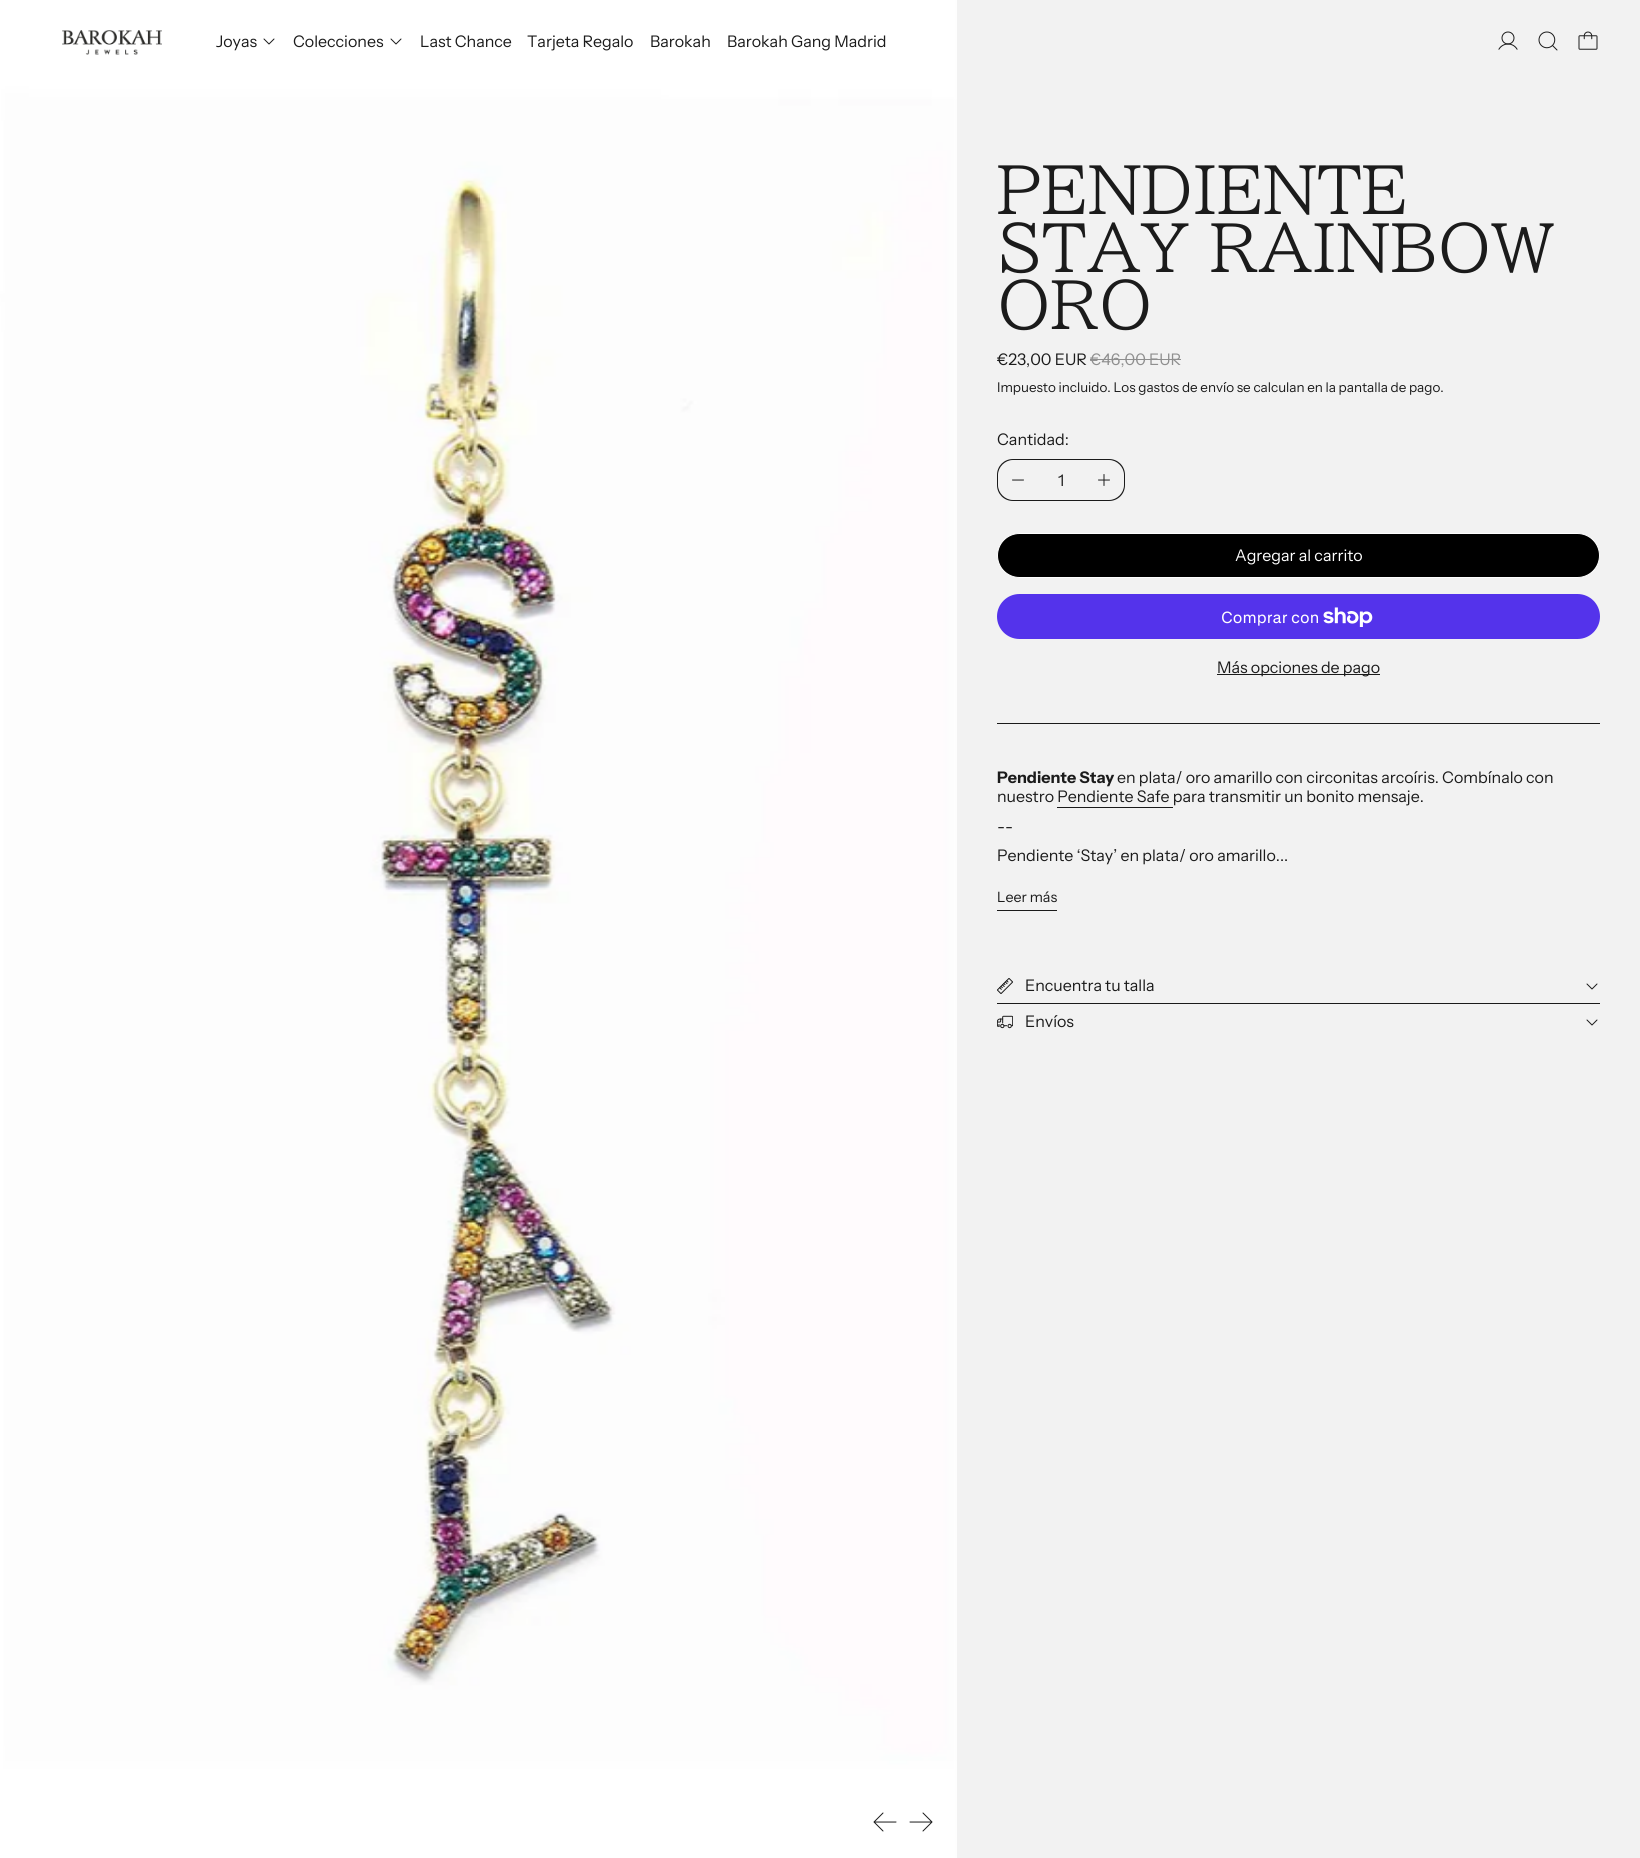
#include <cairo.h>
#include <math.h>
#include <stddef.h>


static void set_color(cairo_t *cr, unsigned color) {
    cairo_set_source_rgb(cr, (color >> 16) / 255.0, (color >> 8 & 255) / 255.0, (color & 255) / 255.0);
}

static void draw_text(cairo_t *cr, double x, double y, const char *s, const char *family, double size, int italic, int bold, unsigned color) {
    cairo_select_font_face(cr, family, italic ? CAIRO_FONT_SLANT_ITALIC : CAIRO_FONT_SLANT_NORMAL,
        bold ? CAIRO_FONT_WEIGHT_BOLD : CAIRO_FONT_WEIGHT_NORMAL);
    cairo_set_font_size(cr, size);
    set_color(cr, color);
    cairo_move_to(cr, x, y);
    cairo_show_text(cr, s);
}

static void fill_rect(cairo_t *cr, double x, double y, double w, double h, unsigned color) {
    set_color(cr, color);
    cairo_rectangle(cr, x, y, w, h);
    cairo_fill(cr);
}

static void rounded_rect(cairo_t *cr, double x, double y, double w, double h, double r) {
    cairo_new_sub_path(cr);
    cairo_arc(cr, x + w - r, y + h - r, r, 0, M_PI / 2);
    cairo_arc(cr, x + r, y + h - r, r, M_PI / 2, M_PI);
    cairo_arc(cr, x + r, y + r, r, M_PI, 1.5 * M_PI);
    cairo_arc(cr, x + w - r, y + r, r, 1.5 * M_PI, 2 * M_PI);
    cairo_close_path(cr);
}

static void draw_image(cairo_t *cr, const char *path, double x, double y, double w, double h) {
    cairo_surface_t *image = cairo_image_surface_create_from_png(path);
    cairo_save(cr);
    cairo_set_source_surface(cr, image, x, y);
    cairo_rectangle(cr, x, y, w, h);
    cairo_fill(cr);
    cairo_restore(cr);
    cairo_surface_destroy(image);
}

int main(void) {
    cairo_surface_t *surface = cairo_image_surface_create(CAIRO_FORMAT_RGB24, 1640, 1858);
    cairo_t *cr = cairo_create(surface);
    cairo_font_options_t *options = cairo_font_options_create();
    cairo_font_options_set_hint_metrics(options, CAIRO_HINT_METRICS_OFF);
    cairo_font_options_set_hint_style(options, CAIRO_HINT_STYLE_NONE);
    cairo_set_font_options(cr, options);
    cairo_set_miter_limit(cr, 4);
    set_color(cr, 0xF2F2F2);
    cairo_paint(cr);
    draw_image(cr, "assets/img5.png", 0, 0, 957, 1858);
    draw_image(cr, "assets/img1.png", 62, 30, 100, 25);
    draw_text(cr, 216, 47, "Joyas", "Instrument Sans", 16, 0, 0, 0x1B1B1B);
    cairo_new_path(cr);
    cairo_move_to(cr, 274, 39);
    cairo_line_to(cr, 269, 44);
    cairo_line_to(cr, 264, 39);
    cairo_set_line_width(cr, 1);
    cairo_set_line_cap(cr, CAIRO_LINE_CAP_ROUND);
    cairo_set_line_join(cr, CAIRO_LINE_JOIN_ROUND);
    cairo_stroke(cr);
    draw_text(cr, 293, 47, "Colecciones", "Instrument Sans", 16, 0, 0, 0x1B1B1B);
    cairo_new_path(cr);
    cairo_move_to(cr, 401, 39);
    cairo_line_to(cr, 396, 44);
    cairo_line_to(cr, 391, 39);
    cairo_stroke(cr);
    draw_text(cr, 420, 47, "Last Chance", "Instrument Sans", 16, 0, 0, 0x1B1B1B);
    draw_text(cr, 527, 47, "Tarjeta Regalo", "Instrument Sans", 16, 0, 0, 0x1B1B1B);
    draw_text(cr, 650, 47, "Barokah", "Instrument Sans", 16, 0, 0, 0x1B1B1B);
    draw_text(cr, 727, 47, "Barokah Gang Madrid", "Instrument Sans", 16, 0, 0, 0x1B1B1B);
    draw_image(cr, "assets/img2.png", 1498, 31, 20, 19);
    draw_image(cr, "assets/img3.png", 1538, 31, 20, 20);
    draw_image(cr, "assets/img4.png", 1578, 31, 20, 19);
    cairo_new_path(cr);
    cairo_move_to(cr, 896, 1822);
    cairo_line_to(cr, 874, 1822);
    cairo_move_to(cr, 883, 1813);
    cairo_line_to(cr, 874, 1822);
    cairo_line_to(cr, 883, 1831);
    cairo_move_to(cr, 910, 1822);
    cairo_line_to(cr, 932, 1822);
    cairo_move_to(cr, 923, 1813);
    cairo_line_to(cr, 932, 1822);
    cairo_line_to(cr, 923, 1831);
    cairo_stroke(cr);
    draw_text(cr, 997, 214, "PENDIENTE", "BIZ UDPMincho", 64, 0, 0, 0x1B1B1B);
    draw_text(cr, 997, 272, "STAY RAINBOW", "BIZ UDPMincho", 64, 0, 0, 0x1B1B1B);
    draw_text(cr, 997, 329, "ORO", "BIZ UDPMincho", 64, 0, 0, 0x1B1B1B);
    draw_text(cr, 997, 365, "€23,00 EUR", "Instrument Sans", 16, 0, 0, 0x1B1B1B);
    draw_text(cr, 1090, 365, "€46,00 EUR", "Instrument Sans", 16, 0, 0, 0x8F8F8F);
    fill_rect(cr, 1090, 359, 91, 1, 0x8F8F8F);
    draw_text(cr, 997, 392, "Impuesto incluido. Los gastos de envío se calculan en la pantalla de pago.", "Instrument Sans", 13.45, 0, 0, 0x1B1B1B);
    draw_text(cr, 997, 445, "Cantidad:", "Instrument Sans", 16, 0, 0, 0x1B1B1B);
    cairo_set_fill_rule(cr, CAIRO_FILL_RULE_EVEN_ODD);
    cairo_new_path(cr);
    cairo_move_to(cr, 1013, 459);
    cairo_line_to(cr, 1038, 459);
    cairo_line_to(cr, 1038, 501);
    cairo_line_to(cr, 1013, 501);
    cairo_curve_to(cr, 1004, 501, 997, 494, 997, 485);
    cairo_line_to(cr, 997, 475);
    cairo_curve_to(cr, 997, 466, 1004, 459, 1013, 459);
    cairo_close_path(cr);
    cairo_move_to(cr, 1013, 460);
    cairo_line_to(cr, 1038, 460);
    cairo_line_to(cr, 1038, 500);
    cairo_line_to(cr, 1013, 500);
    cairo_curve_to(cr, 1005, 500, 998, 493, 998, 485);
    cairo_line_to(cr, 998, 475);
    cairo_curve_to(cr, 998, 467, 1005, 460, 1013, 460);
    cairo_close_path(cr);
    cairo_fill(cr);
    cairo_new_path(cr);
    cairo_move_to(cr, 1012.5, 480);
    cairo_line_to(cr, 1023.5, 480);
    cairo_stroke(cr);
    fill_rect(cr, 1038, 459, 46, 1, 0x1B1B1B);
    fill_rect(cr, 1038, 500, 46, 1, 0x1B1B1B);
    draw_text(cr, 1058, 486, "1", "Instrument Sans", 16, 0, 0, 0x1B1B1B);
    cairo_new_path(cr);
    cairo_move_to(cr, 1084, 459);
    cairo_line_to(cr, 1109, 459);
    cairo_curve_to(cr, 1118, 459, 1125, 466, 1125, 475);
    cairo_line_to(cr, 1125, 485);
    cairo_curve_to(cr, 1125, 494, 1118, 501, 1109, 501);
    cairo_line_to(cr, 1084, 501);
    cairo_close_path(cr);
    cairo_move_to(cr, 1084, 460);
    cairo_line_to(cr, 1109, 460);
    cairo_curve_to(cr, 1117, 460, 1124, 467, 1124, 475);
    cairo_line_to(cr, 1124, 485);
    cairo_curve_to(cr, 1124, 493, 1117, 500, 1109, 500);
    cairo_line_to(cr, 1084, 500);
    cairo_close_path(cr);
    cairo_fill(cr);
    draw_image(cr, "assets/img6.png", 1098, 474, 12, 12);
    set_color(cr, 0x000000);
    rounded_rect(cr, 997.5, 533.5, 602, 44, 22);
    cairo_fill_preserve(cr);
    set_color(cr, 0xFFFFFF);
    cairo_set_line_cap(cr, CAIRO_LINE_CAP_BUTT);
    cairo_set_line_join(cr, CAIRO_LINE_JOIN_MITER);
    cairo_stroke(cr);
    draw_text(cr, 1235, 561, "Agregar al carrito", "Instrument Sans", 16, 0, 0, 0xFFFFFF);
    set_color(cr, 0x5433EB);
    rounded_rect(cr, 997, 594, 603, 45, 22.5);
    cairo_fill(cr);
    draw_text(cr, 1221, 623, "Comprar con", "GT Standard", 16, 0, 0, 0xFFFFFF);
    draw_image(cr, "assets/img7.png", 1323, 607, 50, 20);
    fill_rect(cr, 1217, 674, 163, 1, 0x1B1B1B);
    draw_text(cr, 1217, 673, "Más opciones de pago", "Instrument Sans", 16, 0, 0, 0x1B1B1B);
    fill_rect(cr, 997, 723, 603, 1, 0x1B1B1B);
    draw_text(cr, 997, 783, "Pendiente Stay", "Instrument Sans", 16, 0, 1, 0x1B1B1B);
    draw_text(cr, 1117, 783, "en plata/ oro amarillo con circonitas arcoíris. Combínalo con", "Instrument Sans", 16, 0, 0, 0x1B1B1B);
    draw_text(cr, 997, 802, "nuestro Pendiente Safe para transmitir un bonito mensaje.", "Instrument Sans", 16, 0, 0, 0x1B1B1B);
    fill_rect(cr, 1057, 807, 116, 1, 0x1B1B1B);
    draw_text(cr, 997, 832, "--", "Instrument Sans", 16, 0, 0, 0x1B1B1B);
    draw_text(cr, 997, 861, "Pendiente ‘Stay’ en plata/ oro amarillo...", "Instrument Sans", 16, 0, 0, 0x1B1B1B);
    draw_text(cr, 997, 902, "Leer más", "Instrument Sans", 14.25, 0, 0, 0x1B1B1B);
    fill_rect(cr, 997, 910, 60, 1, 0x1B1B1B);
    draw_image(cr, "assets/img8.png", 997, 978, 16, 16);
    draw_text(cr, 1025, 991, "Encuentra tu talla", "Instrument Sans", 16, 0, 0, 0x1B1B1B);
    cairo_new_path(cr);
    cairo_move_to(cr, 1597, 984);
    cairo_line_to(cr, 1592, 989);
    cairo_line_to(cr, 1587, 984);
    cairo_set_line_cap(cr, CAIRO_LINE_CAP_ROUND);
    cairo_set_line_join(cr, CAIRO_LINE_JOIN_ROUND);
    cairo_stroke(cr);
    fill_rect(cr, 997, 1003, 603, 1, 0x1B1B1B);
    draw_image(cr, "assets/img9.png", 997, 1015, 16, 14);
    draw_text(cr, 1025, 1027, "Envíos", "Instrument Sans", 16, 0, 0, 0x1B1B1B);
    cairo_new_path(cr);
    cairo_move_to(cr, 1597, 1020);
    cairo_line_to(cr, 1592, 1025);
    cairo_line_to(cr, 1587, 1020);
    cairo_stroke(cr);
    cairo_surface_write_to_png(surface, "output.png");
    cairo_font_options_destroy(options);
    cairo_destroy(cr);
    cairo_surface_destroy(surface);
    return 0;
}
